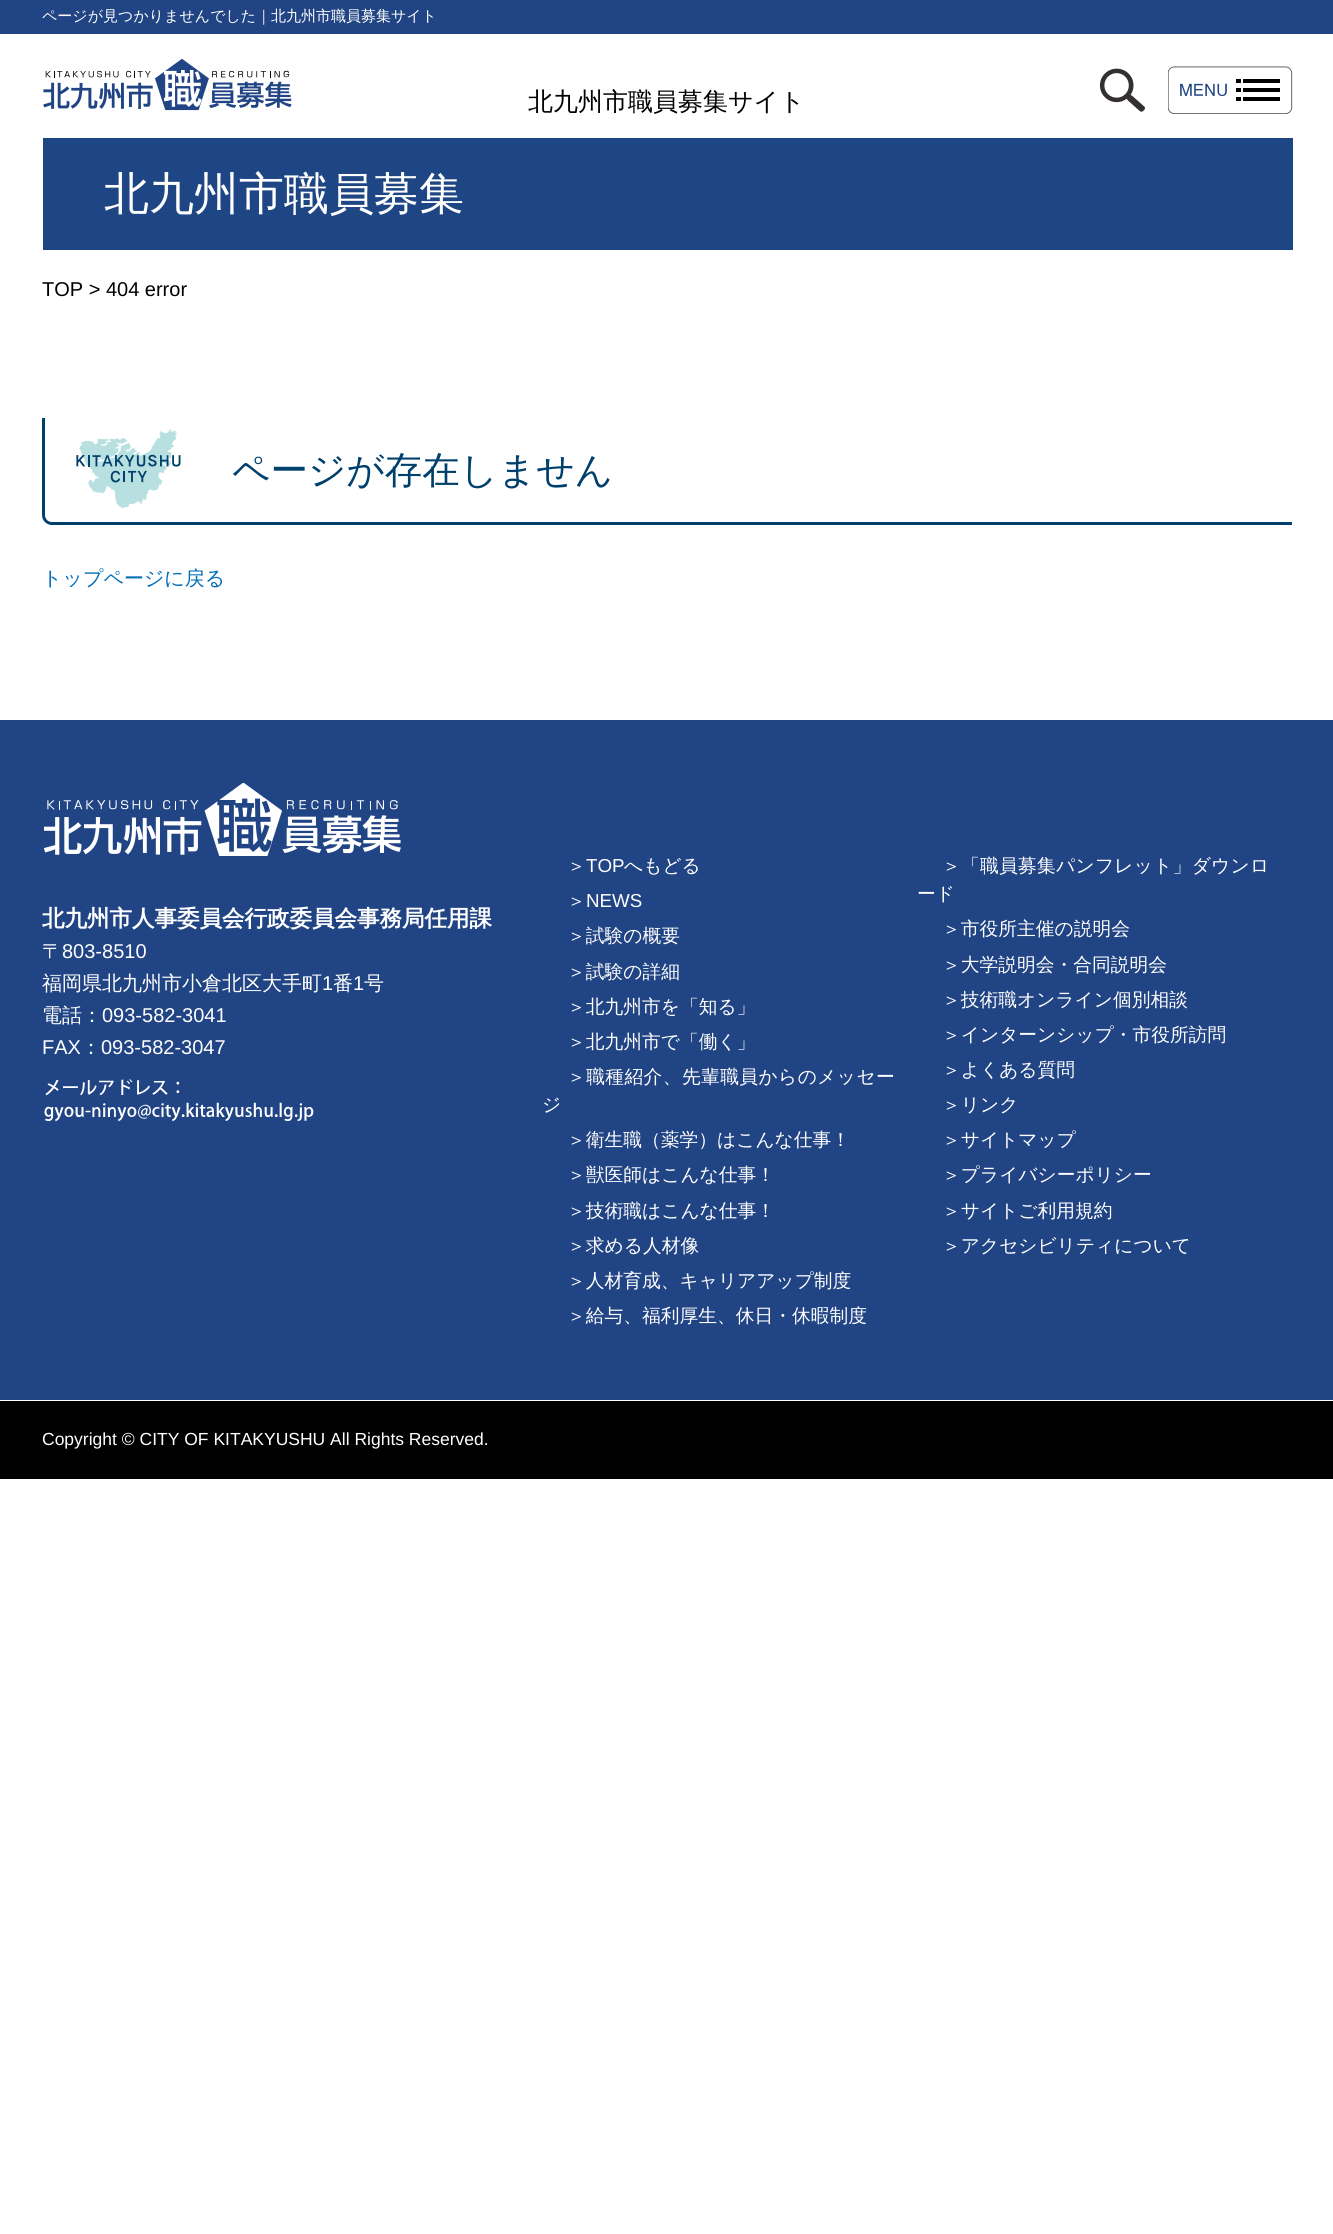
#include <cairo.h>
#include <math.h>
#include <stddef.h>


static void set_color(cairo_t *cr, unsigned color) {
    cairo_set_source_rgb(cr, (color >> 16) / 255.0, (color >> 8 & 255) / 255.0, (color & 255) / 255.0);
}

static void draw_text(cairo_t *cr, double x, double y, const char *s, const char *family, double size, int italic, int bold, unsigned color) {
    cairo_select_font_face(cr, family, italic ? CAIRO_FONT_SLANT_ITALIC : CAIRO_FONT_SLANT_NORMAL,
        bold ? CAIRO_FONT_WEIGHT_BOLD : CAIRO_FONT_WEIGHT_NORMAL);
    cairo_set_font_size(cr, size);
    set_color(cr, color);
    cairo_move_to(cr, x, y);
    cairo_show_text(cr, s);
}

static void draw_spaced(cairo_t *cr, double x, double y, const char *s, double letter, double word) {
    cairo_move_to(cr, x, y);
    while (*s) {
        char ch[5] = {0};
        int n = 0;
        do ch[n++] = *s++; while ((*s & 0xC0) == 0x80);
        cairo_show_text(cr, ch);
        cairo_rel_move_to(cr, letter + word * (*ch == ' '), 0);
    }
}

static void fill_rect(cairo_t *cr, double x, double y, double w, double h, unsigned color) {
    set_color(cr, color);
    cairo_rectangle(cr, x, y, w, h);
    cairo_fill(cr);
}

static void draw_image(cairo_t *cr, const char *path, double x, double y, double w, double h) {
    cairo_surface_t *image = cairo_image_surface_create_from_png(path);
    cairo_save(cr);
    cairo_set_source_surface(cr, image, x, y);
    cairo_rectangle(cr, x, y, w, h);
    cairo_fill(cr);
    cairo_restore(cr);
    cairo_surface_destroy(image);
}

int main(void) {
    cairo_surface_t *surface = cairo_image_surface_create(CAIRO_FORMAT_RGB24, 1333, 2234);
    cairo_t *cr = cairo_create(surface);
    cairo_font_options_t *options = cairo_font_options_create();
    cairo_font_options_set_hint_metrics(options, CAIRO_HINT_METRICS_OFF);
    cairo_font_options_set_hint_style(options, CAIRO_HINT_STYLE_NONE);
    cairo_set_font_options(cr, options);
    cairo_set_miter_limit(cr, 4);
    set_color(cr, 0xFFFFFF);
    cairo_paint(cr);
    fill_rect(cr, 0, 0, 1333, 34, 0x214484);
    draw_text(cr, 42, 21, "ページが見つかりませんでした｜北九州市職員募集サイト", "WenQuanYi Zen Hei Medium", 15, 0, 0, 0xFFFFFF);
    draw_image(cr, "assets/img1.png", 43, 59, 249, 52);
    draw_text(cr, 528, 110, "北九州市職員募集サイト", "WenQuanYi Zen Hei Medium", 25, 0, 0, 0x000000);
    draw_image(cr, "assets/img2.png", 1099, 68, 46, 44);
    draw_image(cr, "assets/img3.png", 1168, 66, 125, 48);
    fill_rect(cr, 43, 138, 1250, 112, 0x1E4684);
    draw_text(cr, 104, 209, "北九州市職員募集", "WenQuanYi Zen Hei Medium", 45, 0, 0, 0xFFFFFF);
    draw_text(cr, 42, 296, "TOP > 404 error", "Liberation Sans", 20, 0, 0, 0x000000);
    draw_image(cr, "assets/img4.png", 76, 429, 105, 80);
    set_color(cr, 0x00406C);
    cairo_set_fill_rule(cr, CAIRO_FILL_RULE_EVEN_ODD);
    cairo_new_path(cr);
    cairo_move_to(cr, 42, 418);
    cairo_line_to(cr, 1292, 418);
    cairo_line_to(cr, 1292, 525);
    cairo_line_to(cr, 52, 525);
    cairo_curve_to(cr, 47, 525, 42, 521, 42, 515);
    cairo_close_path(cr);
    cairo_move_to(cr, 45, 418);
    cairo_line_to(cr, 1292, 418);
    cairo_line_to(cr, 1292, 522);
    cairo_line_to(cr, 52, 522);
    cairo_curve_to(cr, 48, 522, 45, 519, 45, 515);
    cairo_close_path(cr);
    cairo_fill(cr);
    draw_text(cr, 232, 483, "ページが存在しません", "WenQuanYi Zen Hei Medium", 37.5, 0, 0, 0x00406C);
    draw_text(cr, 42, 585, "トップページに戻る", "WenQuanYi Zen Hei Medium", 20, 0, 0, 0x036EB8);
    fill_rect(cr, 0, 720, 1333, 680, 0x214484);
    draw_image(cr, "assets/img5.png", 43, 783, 358, 73);
    draw_text(cr, 42, 926, "北九州市人事委員会行政委員会事務局任用課", "WenQuanYi Zen Hei", 22.5, 0, 1, 0xFFFFFF);
    draw_text(cr, 42, 958, "〒", "WenQuanYi Zen Hei Medium", 20, 0, 0, 0xFFFFFF);
    draw_text(cr, 62, 958, "803-8510", "Liberation Sans", 20, 0, 0, 0xFFFFFF);
    draw_text(cr, 42, 990, "福岡県北九州市小倉北区大手町", "WenQuanYi Zen Hei Medium", 20, 0, 0, 0xFFFFFF);
    draw_text(cr, 322, 990, "1", "Liberation Sans", 20, 0, 0, 0xFFFFFF);
    draw_text(cr, 333, 990, "番", "WenQuanYi Zen Hei Medium", 20, 0, 0, 0xFFFFFF);
    draw_text(cr, 353, 990, "1", "Liberation Sans", 20, 0, 0, 0xFFFFFF);
    draw_text(cr, 364, 990, "号", "WenQuanYi Zen Hei Medium", 20, 0, 0, 0xFFFFFF);
    draw_text(cr, 42, 1022, "電話：", "WenQuanYi Zen Hei Medium", 20, 0, 0, 0xFFFFFF);
    draw_text(cr, 102, 1022, "093-582-3041", "Liberation Sans", 20, 0, 0, 0xFFFFFF);
    draw_text(cr, 42, 1054, "FAX", "Liberation Sans", 20, 0, 0, 0xFFFFFF);
    draw_text(cr, 81, 1054, "：", "WenQuanYi Zen Hei Medium", 20, 0, 0, 0xFFFFFF);
    draw_text(cr, 101, 1054, "093-582-3047", "Liberation Sans", 20, 0, 0, 0xFFFFFF);
    draw_image(cr, "assets/img6.png", 44, 1079, 270, 43);
    draw_text(cr, 567, 872, "＞", "WenQuanYi Zen Hei Medium", 18.75, 0, 0, 0xFFFFFF);
    draw_text(cr, 586, 872, "TOP", "Liberation Sans", 18.75, 0, 0, 0xFFFFFF);
    draw_text(cr, 624, 872, "へもどる", "WenQuanYi Zen Hei Medium", 18.75, 0, 0, 0xFFFFFF);
    draw_text(cr, 567, 907, "＞", "WenQuanYi Zen Hei Medium", 18.75, 0, 0, 0xFFFFFF);
    draw_text(cr, 586, 907, "NEWS", "Liberation Sans", 18.75, 0, 0, 0xFFFFFF);
    draw_text(cr, 567, 942, "＞試験の概要", "WenQuanYi Zen Hei Medium", 18.75, 0, 0, 0xFFFFFF);
    draw_text(cr, 567, 978, "＞試験の詳細", "WenQuanYi Zen Hei Medium", 18.75, 0, 0, 0xFFFFFF);
    draw_text(cr, 567, 1013, "＞北九州市を「知る」", "WenQuanYi Zen Hei Medium", 18.75, 0, 0, 0xFFFFFF);
    draw_text(cr, 567, 1048, "＞北九州市で「働く」", "WenQuanYi Zen Hei Medium", 18.75, 0, 0, 0xFFFFFF);
    draw_spaced(cr, 567, 1083, "＞職種紹介、先輩職員からのメッセー", 0.4, 0);
    draw_text(cr, 542, 1111, "ジ", "WenQuanYi Zen Hei Medium", 18.75, 0, 0, 0xFFFFFF);
    draw_text(cr, 567, 1146, "＞衛生職（薬学）はこんな仕事！", "WenQuanYi Zen Hei Medium", 18.75, 0, 0, 0xFFFFFF);
    draw_text(cr, 567, 1181, "＞獣医師はこんな仕事！", "WenQuanYi Zen Hei Medium", 18.75, 0, 0, 0xFFFFFF);
    draw_text(cr, 567, 1217, "＞技術職はこんな仕事！", "WenQuanYi Zen Hei Medium", 18.75, 0, 0, 0xFFFFFF);
    draw_text(cr, 567, 1252, "＞求める人材像", "WenQuanYi Zen Hei Medium", 18.75, 0, 0, 0xFFFFFF);
    draw_text(cr, 567, 1287, "＞人材育成、キャリアアップ制度", "WenQuanYi Zen Hei Medium", 18.75, 0, 0, 0xFFFFFF);
    draw_text(cr, 567, 1322, "＞給与、福利厚生、休日・休暇制度", "WenQuanYi Zen Hei Medium", 18.75, 0, 0, 0xFFFFFF);
    draw_spaced(cr, 942, 872, "＞「職員募集パンフレット」ダウンロ", 0.25, 0);
    draw_text(cr, 917, 900, "ード", "WenQuanYi Zen Hei Medium", 18.75, 0, 0, 0xFFFFFF);
    draw_text(cr, 942, 935, "＞市役所主催の説明会", "WenQuanYi Zen Hei Medium", 18.75, 0, 0, 0xFFFFFF);
    draw_text(cr, 942, 971, "＞大学説明会・合同説明会", "WenQuanYi Zen Hei Medium", 18.75, 0, 0, 0xFFFFFF);
    draw_text(cr, 942, 1006, "＞技術職オンライン個別相談", "WenQuanYi Zen Hei Medium", 18.75, 0, 0, 0xFFFFFF);
    draw_text(cr, 942, 1041, "＞インターンシップ・市役所訪問", "WenQuanYi Zen Hei Medium", 18.75, 0, 0, 0xFFFFFF);
    draw_text(cr, 942, 1076, "＞よくある質問", "WenQuanYi Zen Hei Medium", 18.75, 0, 0, 0xFFFFFF);
    draw_text(cr, 942, 1111, "＞リンク", "WenQuanYi Zen Hei Medium", 18.75, 0, 0, 0xFFFFFF);
    draw_text(cr, 942, 1146, "＞サイトマップ", "WenQuanYi Zen Hei Medium", 18.75, 0, 0, 0xFFFFFF);
    draw_text(cr, 942, 1181, "＞プライバシーポリシー", "WenQuanYi Zen Hei Medium", 18.75, 0, 0, 0xFFFFFF);
    draw_text(cr, 942, 1217, "＞サイトご利用規約", "WenQuanYi Zen Hei Medium", 18.75, 0, 0, 0xFFFFFF);
    draw_text(cr, 942, 1252, "＞アクセシビリティについて", "WenQuanYi Zen Hei Medium", 18.75, 0, 0, 0xFFFFFF);
    fill_rect(cr, 0, 1401, 1333, 78, 0x000000);
    draw_text(cr, 42, 1445, "Copyright © CITY OF KITAKYUSHU All Rights Reserved.", "Liberation Sans", 17.5, 0, 0, 0xFFFFFF);
    cairo_surface_write_to_png(surface, "output.png");
    cairo_font_options_destroy(options);
    cairo_destroy(cr);
    cairo_surface_destroy(surface);
    return 0;
}
